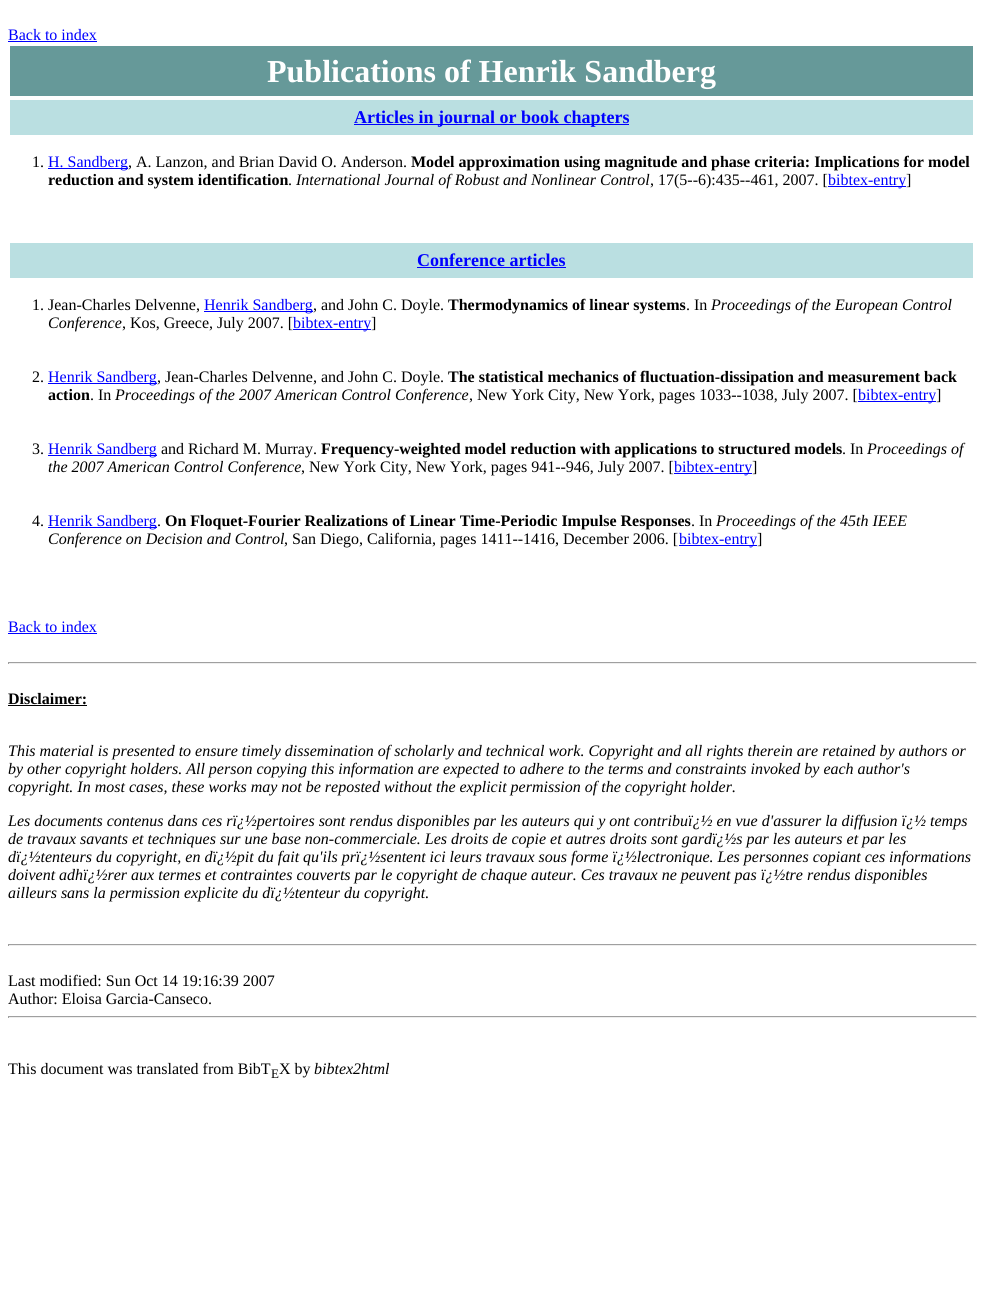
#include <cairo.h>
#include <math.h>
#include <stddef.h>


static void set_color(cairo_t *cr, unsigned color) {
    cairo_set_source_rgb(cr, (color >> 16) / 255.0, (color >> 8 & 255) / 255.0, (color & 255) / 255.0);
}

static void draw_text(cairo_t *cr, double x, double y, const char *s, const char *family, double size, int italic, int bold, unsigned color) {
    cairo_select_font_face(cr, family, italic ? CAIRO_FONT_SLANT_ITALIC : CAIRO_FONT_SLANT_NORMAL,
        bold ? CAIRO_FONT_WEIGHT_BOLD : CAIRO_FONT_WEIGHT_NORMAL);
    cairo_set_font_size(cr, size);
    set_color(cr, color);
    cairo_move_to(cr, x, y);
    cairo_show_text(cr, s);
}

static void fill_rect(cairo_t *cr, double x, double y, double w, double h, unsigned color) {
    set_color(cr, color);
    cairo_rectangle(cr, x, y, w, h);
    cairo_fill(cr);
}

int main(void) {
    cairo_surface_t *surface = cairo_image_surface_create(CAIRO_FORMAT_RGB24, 983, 1306);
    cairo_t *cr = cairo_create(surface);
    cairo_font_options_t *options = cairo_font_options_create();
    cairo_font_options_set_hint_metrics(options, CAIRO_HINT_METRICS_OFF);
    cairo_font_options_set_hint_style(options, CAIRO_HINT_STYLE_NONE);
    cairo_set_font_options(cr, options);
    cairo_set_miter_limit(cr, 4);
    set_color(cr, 0xFFFFFF);
    cairo_paint(cr);
    draw_text(cr, 8, 40, "Back to index", "Liberation Serif", 16, 0, 0, 0x0000FF);
    fill_rect(cr, 8, 41, 89, 1, 0x0000FF);
    fill_rect(cr, 10, 46, 963, 50, 0x669999);
    draw_text(cr, 267, 82, "Publications of Henrik Sandberg", "Liberation Serif", 32, 0, 1, 0xFFFFFF);
    fill_rect(cr, 10, 100, 963, 35, 0xBADFE1);
    fill_rect(cr, 354, 124, 275, 1, 0x0000FF);
    draw_text(cr, 354, 123, "Articles in journal or book chapters", "Liberation Serif", 18, 0, 1, 0x0000FF);
    draw_text(cr, 32, 167, "1.", "Liberation Serif", 16, 0, 0, 0x000000);
    fill_rect(cr, 48, 168, 80, 1, 0x0000FF);
    draw_text(cr, 48, 167, "H. Sandberg", "Liberation Serif", 16, 0, 0, 0x0000FF);
    draw_text(cr, 128, 167, ", A. Lanzon, and Brian David O. Anderson.", "Liberation Serif", 16, 0, 0, 0x000000);
    draw_text(cr, 411, 167, "Model approximation using magnitude and phase criteria: Implications for model", "Liberation Serif", 16, 0, 1, 0x000000);
    draw_text(cr, 48, 185, "reduction and system identification", "Liberation Serif", 16, 0, 1, 0x000000);
    draw_text(cr, 288, 185, ".", "Liberation Serif", 16, 0, 0, 0x000000);
    draw_text(cr, 296, 185, "International Journal of Robust and Nonlinear Control", "Liberation Serif", 16, 1, 0, 0x000000);
    draw_text(cr, 650, 185, ", 17(5--6):435--461, 2007. [", "Liberation Serif", 16, 0, 0, 0x000000);
    fill_rect(cr, 828, 186, 78, 1, 0x0000FF);
    draw_text(cr, 828, 185, "bibtex-entry", "Liberation Serif", 16, 0, 0, 0x0000FF);
    draw_text(cr, 906, 185, "]", "Liberation Serif", 16, 0, 0, 0x000000);
    fill_rect(cr, 10, 243, 963, 35, 0xBADFE1);
    draw_text(cr, 417, 266, "Conference articles", "Liberation Serif", 18, 0, 1, 0x0000FF);
    fill_rect(cr, 417, 267, 149, 1, 0x0000FF);
    draw_text(cr, 32, 310, "1. Jean-Charles Delvenne,", "Liberation Serif", 16, 0, 0, 0x000000);
    fill_rect(cr, 204, 311, 109, 1, 0x0000FF);
    draw_text(cr, 204, 310, "Henrik Sandberg", "Liberation Serif", 16, 0, 0, 0x0000FF);
    draw_text(cr, 313, 310, ", and John C. Doyle.", "Liberation Serif", 16, 0, 0, 0x000000);
    draw_text(cr, 448, 310, "Thermodynamics of linear systems", "Liberation Serif", 16, 0, 1, 0x000000);
    draw_text(cr, 686, 310, ". In", "Liberation Serif", 16, 0, 0, 0x000000);
    draw_text(cr, 711, 310, "Proceedings of the European Control", "Liberation Serif", 16, 1, 0, 0x000000);
    draw_text(cr, 48, 328, "Conference", "Liberation Serif", 16, 1, 0, 0x000000);
    draw_text(cr, 122, 328, ", Kos, Greece, July 2007. [", "Liberation Serif", 16, 0, 0, 0x000000);
    fill_rect(cr, 293, 329, 78, 1, 0x0000FF);
    draw_text(cr, 293, 328, "bibtex-entry", "Liberation Serif", 16, 0, 0, 0x0000FF);
    draw_text(cr, 371, 328, "]", "Liberation Serif", 16, 0, 0, 0x000000);
    draw_text(cr, 32, 382, "2.", "Liberation Serif", 16, 0, 0, 0x000000);
    fill_rect(cr, 48, 383, 109, 1, 0x0000FF);
    draw_text(cr, 48, 382, "Henrik Sandberg", "Liberation Serif", 16, 0, 0, 0x0000FF);
    draw_text(cr, 157, 382, ", Jean-Charles Delvenne, and John C. Doyle.", "Liberation Serif", 16, 0, 0, 0x000000);
    draw_text(cr, 448, 382, "The statistical mechanics of fluctuation-dissipation and measurement back", "Liberation Serif", 16, 0, 1, 0x000000);
    draw_text(cr, 48, 400, "action", "Liberation Serif", 16, 0, 1, 0x000000);
    draw_text(cr, 90, 400, ". In", "Liberation Serif", 16, 0, 0, 0x000000);
    draw_text(cr, 115, 400, "Proceedings of the 2007 American Control Conference", "Liberation Serif", 16, 1, 0, 0x000000);
    draw_text(cr, 469, 400, ", New York City, New York, pages 1033--1038, July 2007. [", "Liberation Serif", 16, 0, 0, 0x000000);
    fill_rect(cr, 858, 401, 78, 1, 0x0000FF);
    draw_text(cr, 858, 400, "bibtex-entry", "Liberation Serif", 16, 0, 0, 0x0000FF);
    draw_text(cr, 936, 400, "]", "Liberation Serif", 16, 0, 0, 0x000000);
    draw_text(cr, 32, 454, "3.", "Liberation Serif", 16, 0, 0, 0x000000);
    fill_rect(cr, 48, 455, 109, 1, 0x0000FF);
    draw_text(cr, 48, 454, "Henrik Sandberg", "Liberation Serif", 16, 0, 0, 0x0000FF);
    draw_text(cr, 161, 454, "and Richard M. Murray.", "Liberation Serif", 16, 0, 0, 0x000000);
    draw_text(cr, 321, 454, "Frequency-weighted model reduction with applications to structured models", "Liberation Serif", 16, 0, 1, 0x000000);
    draw_text(cr, 842, 454, ". In", "Liberation Serif", 16, 0, 0, 0x000000);
    draw_text(cr, 867, 454, "Proceedings of", "Liberation Serif", 16, 1, 0, 0x000000);
    draw_text(cr, 48, 472, "the 2007 American Control Conference", "Liberation Serif", 16, 1, 0, 0x000000);
    draw_text(cr, 301, 472, ", New York City, New York, pages 941--946, July 2007. [", "Liberation Serif", 16, 0, 0, 0x000000);
    fill_rect(cr, 674, 473, 78, 1, 0x0000FF);
    draw_text(cr, 674, 472, "bibtex-entry", "Liberation Serif", 16, 0, 0, 0x0000FF);
    draw_text(cr, 752, 472, "]", "Liberation Serif", 16, 0, 0, 0x000000);
    draw_text(cr, 32, 526, "4.", "Liberation Serif", 16, 0, 0, 0x000000);
    fill_rect(cr, 48, 527, 109, 1, 0x0000FF);
    draw_text(cr, 48, 526, "Henrik Sandberg", "Liberation Serif", 16, 0, 0, 0x0000FF);
    draw_text(cr, 157, 526, ".", "Liberation Serif", 16, 0, 0, 0x000000);
    draw_text(cr, 165, 526, "On Floquet-Fourier Realizations of Linear Time-Periodic Impulse Responses", "Liberation Serif", 16, 0, 1, 0x000000);
    draw_text(cr, 691, 526, ". In", "Liberation Serif", 16, 0, 0, 0x000000);
    draw_text(cr, 716, 526, "Proceedings of the 45th IEEE", "Liberation Serif", 16, 1, 0, 0x000000);
    draw_text(cr, 48, 544, "Conference on Decision and Control", "Liberation Serif", 16, 1, 0, 0x000000);
    draw_text(cr, 284, 544, ", San Diego, California, pages 1411--1416, December 2006. [", "Liberation Serif", 16, 0, 0, 0x000000);
    fill_rect(cr, 679, 545, 78, 1, 0x0000FF);
    draw_text(cr, 679, 544, "bibtex-entry", "Liberation Serif", 16, 0, 0, 0x0000FF);
    draw_text(cr, 757, 544, "]", "Liberation Serif", 16, 0, 0, 0x000000);
    draw_text(cr, 8, 632, "Back to index", "Liberation Serif", 16, 0, 0, 0x0000FF);
    fill_rect(cr, 8, 633, 89, 1, 0x0000FF);
    fill_rect(cr, 8, 662, 969, 1, 0x9F9F9F);
    fill_rect(cr, 976, 662, 1, 2, 0xEEEEEE);
    fill_rect(cr, 8, 663, 969, 1, 0xEEEEEE);
    fill_rect(cr, 8, 662, 1, 2, 0x9F9F9F);
    draw_text(cr, 8, 704, "Disclaimer:", "Liberation Serif", 16, 0, 1, 0x000000);
    fill_rect(cr, 8, 705, 79, 1, 0x000000);
    draw_text(cr, 8, 756, "This material is presented to ensure timely dissemination of scholarly and technical work. Copyright and all rights therein are retained by authors or", "Liberation Serif", 16, 1, 0, 0x000000);
    draw_text(cr, 8, 774, "by other copyright holders. All person copying this information are expected to adhere to the terms and constraints invoked by each author's", "Liberation Serif", 16, 1, 0, 0x000000);
    draw_text(cr, 8, 792, "copyright. In most cases, these works may not be reposted without the explicit permission of the copyright holder.", "Liberation Serif", 16, 1, 0, 0x000000);
    draw_text(cr, 8, 826, "Les documents contenus dans ces rï¿½pertoires sont rendus disponibles par les auteurs qui y ont contribuï¿½ en vue d'assurer la diffusion ï¿½ temps", "Liberation Serif", 16, 1, 0, 0x000000);
    draw_text(cr, 8, 844, "de travaux savants et techniques sur une base non-commerciale. Les droits de copie et autres droits sont gardï¿½s par les auteurs et par les", "Liberation Serif", 16, 1, 0, 0x000000);
    draw_text(cr, 8, 862, "dï¿½tenteurs du copyright, en dï¿½pit du fait qu'ils prï¿½sentent ici leurs travaux sous forme ï¿½lectronique. Les personnes copiant ces informations", "Liberation Serif", 16, 1, 0, 0x000000);
    draw_text(cr, 8, 880, "doivent adhï¿½rer aux termes et contraintes couverts par le copyright de chaque auteur. Ces travaux ne peuvent pas ï¿½tre rendus disponibles", "Liberation Serif", 16, 1, 0, 0x000000);
    draw_text(cr, 8, 898, "ailleurs sans la permission explicite du dï¿½tenteur du copyright.", "Liberation Serif", 16, 1, 0, 0x000000);
    fill_rect(cr, 8, 944, 969, 1, 0x9F9F9F);
    fill_rect(cr, 976, 944, 1, 2, 0xEEEEEE);
    fill_rect(cr, 8, 945, 969, 1, 0xEEEEEE);
    fill_rect(cr, 8, 944, 1, 2, 0x9F9F9F);
    draw_text(cr, 8, 986, "Last modified: Sun Oct 14 19:16:39 2007", "Liberation Serif", 16, 0, 0, 0x000000);
    draw_text(cr, 8, 1004, "Author: Eloisa Garcia-Canseco.", "Liberation Serif", 16, 0, 0, 0x000000);
    fill_rect(cr, 8, 1016, 969, 1, 0x9F9F9F);
    fill_rect(cr, 976, 1016, 1, 2, 0xEEEEEE);
    fill_rect(cr, 8, 1017, 969, 1, 0xEEEEEE);
    fill_rect(cr, 8, 1016, 1, 2, 0x9F9F9F);
    draw_text(cr, 8, 1074, "This document was translated from BibT", "Liberation Serif", 16, 0, 0, 0x000000);
    draw_text(cr, 271, 1078, "E", "Liberation Serif", 13, 0, 0, 0x000000);
    draw_text(cr, 279, 1074, "X by", "Liberation Serif", 16, 0, 0, 0x000000);
    draw_text(cr, 314, 1074, "bibtex2html", "Liberation Serif", 16, 1, 0, 0x000000);
    cairo_surface_write_to_png(surface, "output.png");
    cairo_font_options_destroy(options);
    cairo_destroy(cr);
    cairo_surface_destroy(surface);
    return 0;
}
